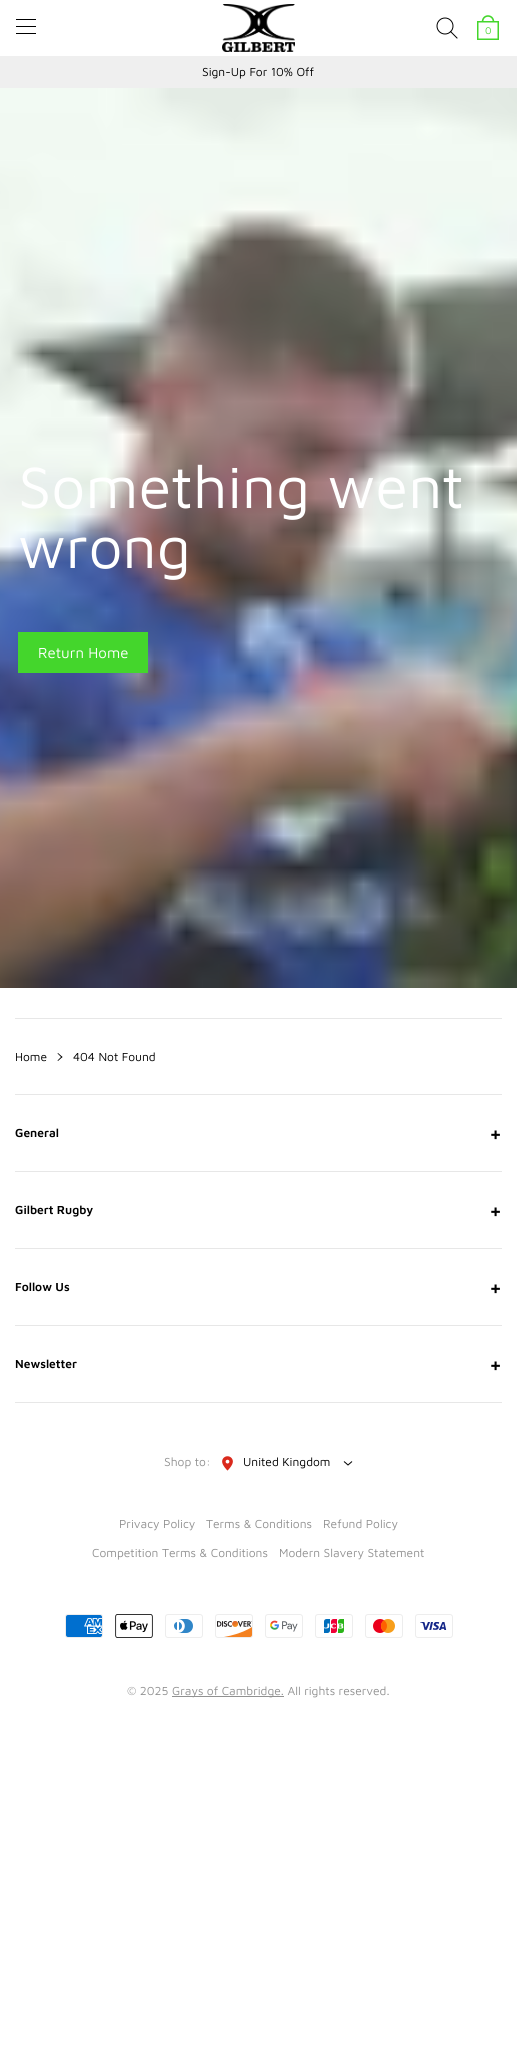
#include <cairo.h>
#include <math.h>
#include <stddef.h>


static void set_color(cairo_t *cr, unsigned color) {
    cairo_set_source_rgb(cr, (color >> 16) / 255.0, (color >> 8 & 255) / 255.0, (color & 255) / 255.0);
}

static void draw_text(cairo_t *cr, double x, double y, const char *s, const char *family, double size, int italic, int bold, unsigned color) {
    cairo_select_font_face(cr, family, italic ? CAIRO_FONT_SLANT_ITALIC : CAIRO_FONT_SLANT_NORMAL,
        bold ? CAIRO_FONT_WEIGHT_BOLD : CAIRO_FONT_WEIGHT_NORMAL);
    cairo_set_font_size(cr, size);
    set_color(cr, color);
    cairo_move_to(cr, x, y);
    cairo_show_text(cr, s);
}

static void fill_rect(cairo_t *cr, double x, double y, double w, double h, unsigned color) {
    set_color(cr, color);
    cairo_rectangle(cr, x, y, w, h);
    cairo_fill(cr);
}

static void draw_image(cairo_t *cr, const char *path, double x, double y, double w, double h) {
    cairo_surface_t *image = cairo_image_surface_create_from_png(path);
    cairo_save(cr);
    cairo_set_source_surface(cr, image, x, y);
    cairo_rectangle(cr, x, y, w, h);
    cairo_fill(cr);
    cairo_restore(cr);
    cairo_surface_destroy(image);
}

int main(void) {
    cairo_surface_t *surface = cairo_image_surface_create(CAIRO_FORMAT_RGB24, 517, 2045);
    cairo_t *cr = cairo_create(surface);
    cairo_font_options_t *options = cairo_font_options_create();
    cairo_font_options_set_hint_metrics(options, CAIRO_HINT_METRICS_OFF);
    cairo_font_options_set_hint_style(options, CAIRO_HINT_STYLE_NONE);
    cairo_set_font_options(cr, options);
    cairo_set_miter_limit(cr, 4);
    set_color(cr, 0xFFFFFF);
    cairo_paint(cr);
    fill_rect(cr, 16, 19, 20, 1, 0x000000);
    fill_rect(cr, 16, 26, 20, 1, 0x000000);
    fill_rect(cr, 16, 33, 20, 1, 0x000000);
    draw_image(cr, "assets/img1.png", 222, 4, 73, 48);
    cairo_new_path(cr);
    cairo_move_to(cr, 457, 38);
    cairo_line_to(cr, 450.5, 31.5);
    cairo_set_line_width(cr, 1);
    cairo_set_line_cap(cr, CAIRO_LINE_CAP_SQUARE);
    cairo_stroke(cr);
    cairo_arc(cr, 445, 26, 8, 0, 2 * M_PI);
    cairo_set_line_cap(cr, CAIRO_LINE_CAP_BUTT);
    cairo_stroke(cr);
    cairo_new_path(cr);
    cairo_move_to(cr, 482.5, 22);
    cairo_curve_to(cr, 482.5, 14, 493.5, 14, 493.5, 22);
    set_color(cr, 0x44D62C);
    cairo_set_line_width(cr, 1.6);
    cairo_stroke(cr);
    cairo_rectangle(cr, 477.75, 21.75, 20.5, 17.5);
    cairo_set_line_width(cr, 1.5);
    cairo_stroke(cr);
    draw_text(cr, 485, 34, "0", "Maven Pro", 10, 0, 0, 0x44D62C);
    fill_rect(cr, 0, 56, 517, 32, 0xEFEFEF);
    draw_text(cr, 202, 76, "Sign-Up For 10% Off", "Maven Pro", 12, 0, 0, 0x000000);
    draw_image(cr, "assets/img2.png", 0, 88, 517, 900);
    draw_text(cr, 18, 508, "Something went", "Maven Pro", 60, 0, 0, 0xFFFFFF);
    draw_text(cr, 18, 568, "wrong", "Maven Pro", 60, 0, 0, 0xFFFFFF);
    fill_rect(cr, 18, 632, 130, 41, 0x44D62C);
    draw_text(cr, 38, 658, "Return Home", "Maven Pro", 15, 0, 0, 0xFFFFFF);
    fill_rect(cr, 15, 1018, 487, 1, 0xE7E7E7);
    draw_text(cr, 15, 1061, "Home", "Maven Pro", 12, 0, 0, 0x000000);
    cairo_new_path(cr);
    cairo_move_to(cr, 58, 1053);
    cairo_line_to(cr, 62.5, 1057);
    cairo_line_to(cr, 61.5, 1057.5);
    cairo_line_to(cr, 57.5, 1053.5);
    cairo_close_path(cr);
    cairo_fill(cr);
    cairo_new_path(cr);
    cairo_move_to(cr, 61.5, 1056.5);
    cairo_line_to(cr, 62.5, 1057);
    cairo_line_to(cr, 58, 1061);
    cairo_line_to(cr, 57.5, 1060.5);
    cairo_close_path(cr);
    cairo_fill(cr);
    draw_text(cr, 73, 1061, "404 Not Found", "Maven Pro", 12, 0, 0, 0x000000);
    fill_rect(cr, 15, 1094, 487, 1, 0xE7E7E7);
    fill_rect(cr, 15, 1171, 487, 1, 0xE7E7E7);
    draw_text(cr, 15, 1137, "General", "Maven Pro SemiBold", 12, 0, 0, 0x000000);
    draw_text(cr, 489, 1142, "+", "Maven Pro SemiBold", 24, 0, 0, 0x000000);
    fill_rect(cr, 15, 1248, 487, 1, 0xE7E7E7);
    draw_text(cr, 15, 1214, "Gilbert Rugby", "Maven Pro SemiBold", 12, 0, 0, 0x000000);
    draw_text(cr, 489, 1219, "+", "Maven Pro SemiBold", 24, 0, 0, 0x000000);
    fill_rect(cr, 15, 1325, 487, 1, 0xE7E7E7);
    draw_text(cr, 15, 1291, "Follow Us", "Maven Pro SemiBold", 12, 0, 0, 0x000000);
    draw_text(cr, 489, 1296, "+", "Maven Pro SemiBold", 24, 0, 0, 0x000000);
    fill_rect(cr, 15, 1402, 487, 1, 0xE7E7E7);
    draw_text(cr, 15, 1368, "Newsletter", "Maven Pro SemiBold", 12, 0, 0, 0x000000);
    draw_text(cr, 489, 1373, "+", "Maven Pro SemiBold", 24, 0, 0, 0x000000);
    draw_text(cr, 164, 1466, "Shop to:", "Maven Pro", 12, 0, 0, 0x919191);
    draw_image(cr, "assets/img3.png", 222, 1456, 11, 15);
    draw_text(cr, 243, 1466, "United Kingdom", "Maven Pro", 12, 0, 0, 0x000000);
    cairo_new_path(cr);
    cairo_move_to(cr, 344, 1461.5);
    cairo_line_to(cr, 348, 1465);
    cairo_line_to(cr, 352, 1461.5);
    cairo_set_line_width(cr, 1);
    cairo_stroke(cr);
    draw_text(cr, 119, 1528, "Privacy Policy", "Maven Pro", 12, 0, 0, 0x919191);
    draw_text(cr, 206, 1528, "Terms & Conditions", "Maven Pro", 12, 0, 0, 0x919191);
    draw_text(cr, 323, 1528, "Refund Policy", "Maven Pro", 12, 0, 0, 0x919191);
    draw_text(cr, 92, 1557, "Competition Terms & Conditions", "Maven Pro", 12, 0, 0, 0x919191);
    draw_text(cr, 279, 1557, "Modern Slavery Statement", "Maven Pro", 12, 0, 0, 0x919191);
    draw_image(cr, "assets/img4.png", 65, 1614, 38, 24);
    draw_image(cr, "assets/img5.png", 115, 1614, 38, 24);
    draw_image(cr, "assets/img6.png", 165, 1614, 38, 24);
    draw_image(cr, "assets/img7.png", 215, 1614, 38, 24);
    draw_image(cr, "assets/img8.png", 265, 1614, 38, 24);
    draw_image(cr, "assets/img9.png", 315, 1614, 38, 24);
    draw_image(cr, "assets/img10.png", 365, 1614, 38, 24);
    draw_image(cr, "assets/img11.png", 415, 1614, 38, 24);
    draw_text(cr, 127, 1695, "© 2025", "Maven Pro", 12, 0, 0, 0x919191);
    fill_rect(cr, 172, 1696, 112, 1, 0x919191);
    draw_text(cr, 172, 1695, "Grays of Cambridge. All rights reserved.", "Maven Pro", 12, 0, 0, 0x919191);
    cairo_surface_write_to_png(surface, "output.png");
    cairo_font_options_destroy(options);
    cairo_destroy(cr);
    cairo_surface_destroy(surface);
    return 0;
}
